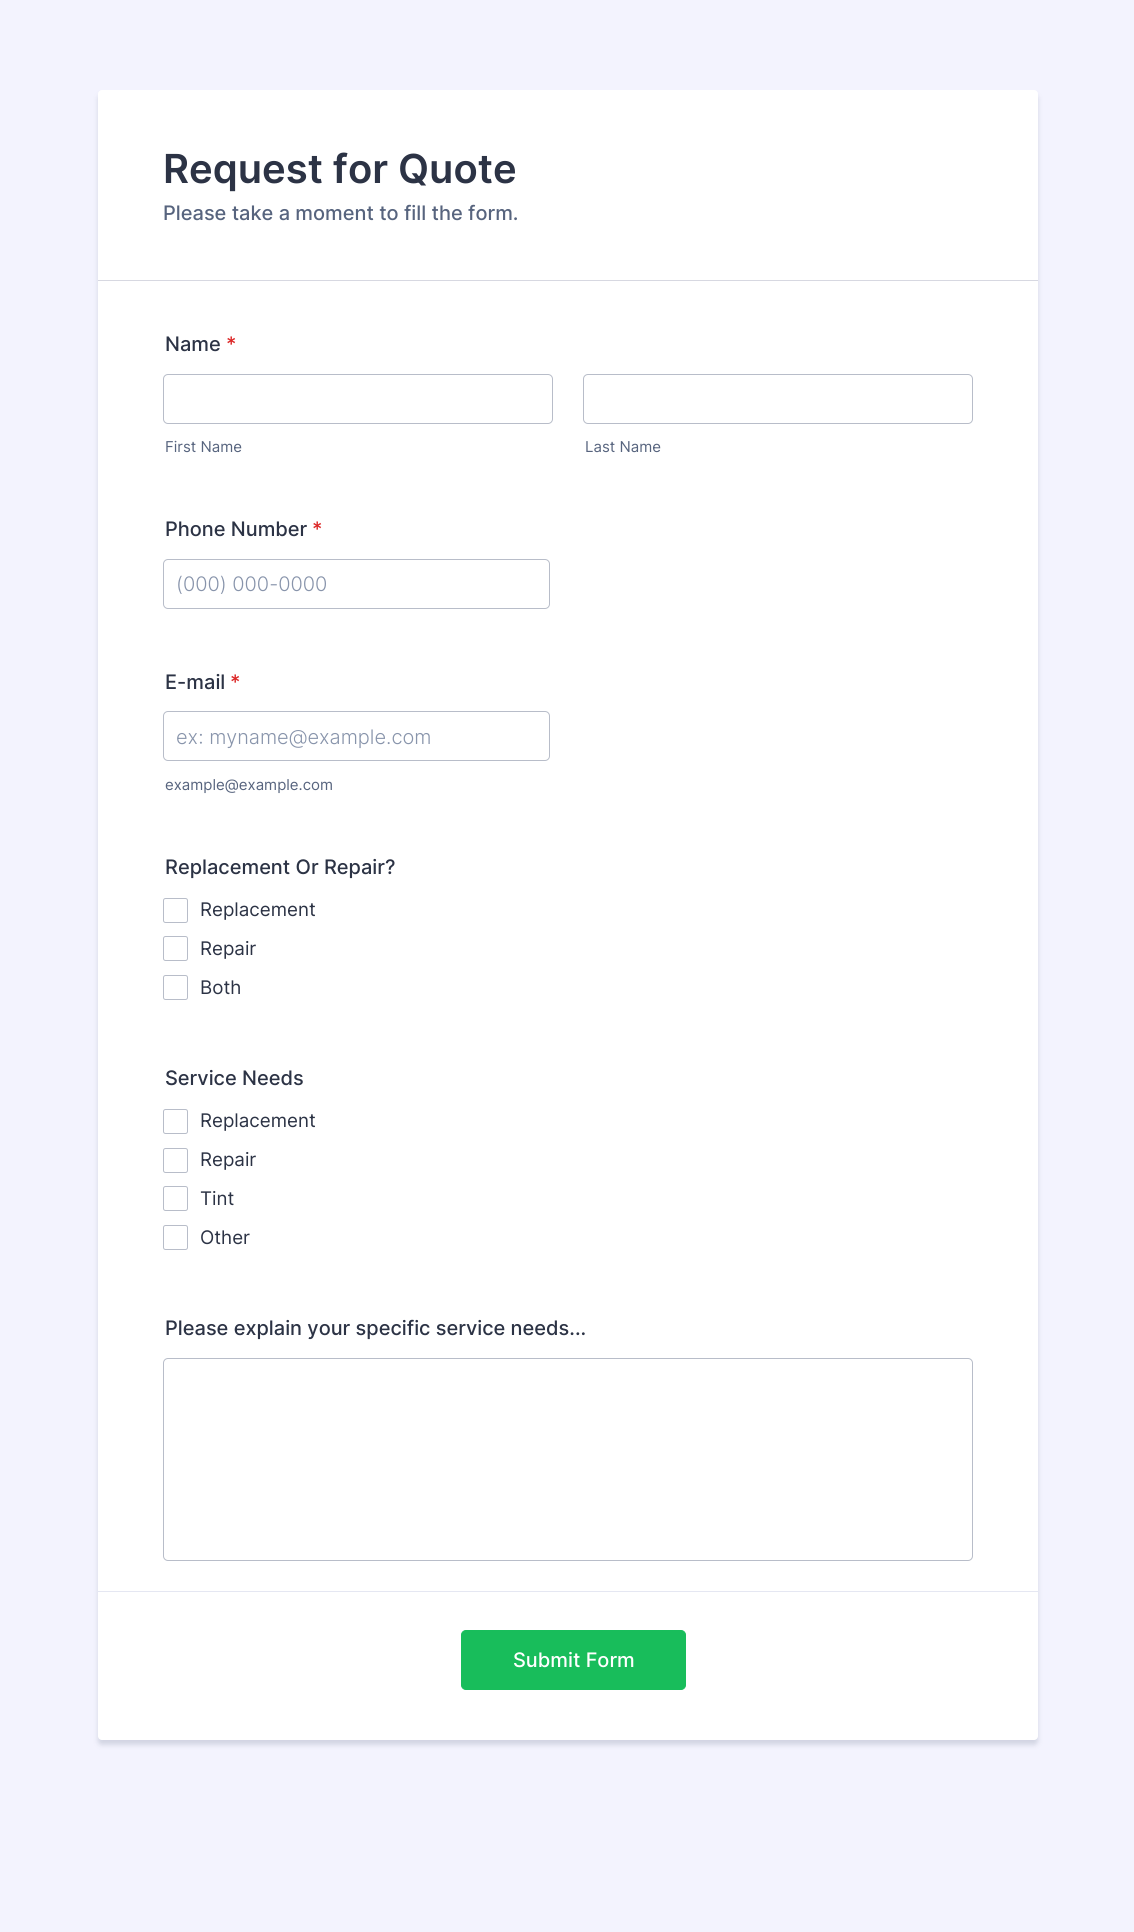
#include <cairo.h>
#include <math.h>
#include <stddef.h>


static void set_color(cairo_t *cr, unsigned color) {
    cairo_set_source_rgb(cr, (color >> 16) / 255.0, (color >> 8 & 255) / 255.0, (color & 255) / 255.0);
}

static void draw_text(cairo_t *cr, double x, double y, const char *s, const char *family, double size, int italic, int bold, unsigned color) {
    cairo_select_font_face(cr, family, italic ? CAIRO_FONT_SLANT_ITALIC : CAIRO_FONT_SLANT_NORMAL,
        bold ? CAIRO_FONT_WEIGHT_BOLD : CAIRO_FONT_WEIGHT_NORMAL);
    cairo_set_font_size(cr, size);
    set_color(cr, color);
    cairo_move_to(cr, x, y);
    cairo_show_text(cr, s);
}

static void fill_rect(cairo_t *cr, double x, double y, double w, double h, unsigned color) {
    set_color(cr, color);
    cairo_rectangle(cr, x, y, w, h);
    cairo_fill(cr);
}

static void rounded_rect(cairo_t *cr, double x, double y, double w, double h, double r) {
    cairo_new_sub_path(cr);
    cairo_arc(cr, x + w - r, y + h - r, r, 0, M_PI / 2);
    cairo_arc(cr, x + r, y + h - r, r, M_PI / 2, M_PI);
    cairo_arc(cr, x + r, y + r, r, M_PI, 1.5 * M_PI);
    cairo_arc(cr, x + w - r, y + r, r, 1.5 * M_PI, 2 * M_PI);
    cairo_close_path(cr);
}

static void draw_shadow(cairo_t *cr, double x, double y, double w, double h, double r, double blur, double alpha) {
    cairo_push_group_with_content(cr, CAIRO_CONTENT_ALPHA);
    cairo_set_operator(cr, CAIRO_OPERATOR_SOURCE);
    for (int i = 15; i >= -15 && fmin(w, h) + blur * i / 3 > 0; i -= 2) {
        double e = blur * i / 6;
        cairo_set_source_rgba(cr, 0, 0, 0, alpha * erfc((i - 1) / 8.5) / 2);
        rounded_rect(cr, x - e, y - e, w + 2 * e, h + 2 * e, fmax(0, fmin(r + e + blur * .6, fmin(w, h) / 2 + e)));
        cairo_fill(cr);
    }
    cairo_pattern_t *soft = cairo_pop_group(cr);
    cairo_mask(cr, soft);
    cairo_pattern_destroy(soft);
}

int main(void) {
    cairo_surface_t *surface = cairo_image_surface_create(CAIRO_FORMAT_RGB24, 1134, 1932);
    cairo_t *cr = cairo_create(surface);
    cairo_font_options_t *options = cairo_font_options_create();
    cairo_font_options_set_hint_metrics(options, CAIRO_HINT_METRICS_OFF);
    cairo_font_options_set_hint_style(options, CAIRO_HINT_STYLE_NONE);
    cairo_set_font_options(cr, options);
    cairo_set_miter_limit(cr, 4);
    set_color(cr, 0xF3F3FE);
    cairo_paint(cr);
    set_color(cr, 0x57647E);
    draw_shadow(cr, 98, 95, 940, 1650, 4, 2.5, 0.21);
    set_color(cr, 0xFFFFFF);
    rounded_rect(cr, 98, 90, 940, 1650, 4);
    cairo_fill(cr);
    fill_rect(cr, 98, 280, 940, 1, 0xD7D8E1);
    draw_text(cr, 163, 183, "Request for Quote", "Inter SemiBold", 40, 0, 0, 0x2C3345);
    draw_text(cr, 163, 220, "Please take a moment to fill the form.", "Inter Medium", 20, 0, 0, 0x57647E);
    draw_text(cr, 165, 351, "Name", "Inter Medium", 20, 0, 0, 0x2C3345);
    draw_text(cr, 226, 351, "*", "Inter Medium", 20, 0, 0, 0xDC2626);
    rounded_rect(cr, 163.5, 374.5, 389, 49, 4.5);
    set_color(cr, 0xB8BDC9);
    cairo_set_line_width(cr, 1);
    cairo_stroke(cr);
    draw_text(cr, 165, 452, "First Name", "Inter", 15, 0, 0, 0x57647E);
    rounded_rect(cr, 583.5, 374.5, 389, 49, 4.5);
    set_color(cr, 0xB8BDC9);
    cairo_stroke(cr);
    draw_text(cr, 585, 452, "Last Name", "Inter", 15, 0, 0, 0x57647E);
    draw_text(cr, 165, 536, "Phone Number", "Inter Medium", 20, 0, 0, 0x2C3345);
    draw_text(cr, 312, 536, "*", "Inter Medium", 20, 0, 0, 0xDC2626);
    rounded_rect(cr, 163.5, 559.5, 386, 49, 4.5);
    set_color(cr, 0xB8BDC9);
    cairo_stroke(cr);
    draw_text(cr, 176, 591, "(000) 000-0000", "Inter Light", 20, 0, 0, 0x8894AB);
    draw_text(cr, 165, 689, "E-mail", "Inter Medium", 20, 0, 0, 0x2C3345);
    draw_text(cr, 230, 689, "*", "Inter Medium", 20, 0, 0, 0xDC2626);
    rounded_rect(cr, 163.5, 711.5, 386, 49, 4.5);
    set_color(cr, 0xB8BDC9);
    cairo_stroke(cr);
    draw_text(cr, 176, 744, "ex: myname@example.com", "Inter Light", 20, 0, 0, 0x8894AB);
    draw_text(cr, 165, 790, "example@example.com", "Inter", 15, 0, 0, 0x57647E);
    draw_text(cr, 165, 874, "Replacement Or Repair?", "Inter Medium", 20, 0, 0, 0x2C3345);
    rounded_rect(cr, 163.5, 898.5, 24, 24, 2);
    set_color(cr, 0xB8BDC9);
    cairo_stroke(cr);
    draw_text(cr, 200, 916, "Replacement", "Inter", 18.75, 0, 0, 0x2C3345);
    rounded_rect(cr, 163.5, 936.5, 24, 24, 2);
    set_color(cr, 0xB8BDC9);
    cairo_stroke(cr);
    draw_text(cr, 200, 955, "Repair", "Inter", 18.75, 0, 0, 0x2C3345);
    rounded_rect(cr, 163.5, 975.5, 24, 24, 2);
    set_color(cr, 0xB8BDC9);
    cairo_stroke(cr);
    draw_text(cr, 200, 994, "Both", "Inter", 18.75, 0, 0, 0x2C3345);
    draw_text(cr, 165, 1085, "Service Needs", "Inter Medium", 20, 0, 0, 0x2C3345);
    rounded_rect(cr, 163.5, 1109.5, 24, 24, 2);
    set_color(cr, 0xB8BDC9);
    cairo_stroke(cr);
    draw_text(cr, 200, 1127, "Replacement", "Inter", 18.75, 0, 0, 0x2C3345);
    rounded_rect(cr, 163.5, 1148.5, 24, 24, 2);
    set_color(cr, 0xB8BDC9);
    cairo_stroke(cr);
    draw_text(cr, 200, 1166, "Repair", "Inter", 18.75, 0, 0, 0x2C3345);
    rounded_rect(cr, 163.5, 1186.5, 24, 24, 2);
    set_color(cr, 0xB8BDC9);
    cairo_stroke(cr);
    draw_text(cr, 200, 1205, "Tint", "Inter", 18.75, 0, 0, 0x2C3345);
    rounded_rect(cr, 163.5, 1225.5, 24, 24, 2);
    set_color(cr, 0xB8BDC9);
    cairo_stroke(cr);
    draw_text(cr, 200, 1244, "Other", "Inter", 18.75, 0, 0, 0x2C3345);
    draw_text(cr, 165, 1335, "Please explain your specific service needs...", "Inter Medium", 20, 0, 0, 0x2C3345);
    rounded_rect(cr, 163.5, 1358.5, 809, 202, 4.5);
    set_color(cr, 0xB8BDC9);
    cairo_stroke(cr);
    fill_rect(cr, 98, 1591, 940, 1, 0xE5E7F2);
    set_color(cr, 0x18BD5B);
    rounded_rect(cr, 461.5, 1630.5, 224, 59, 4.5);
    cairo_fill_preserve(cr);
    cairo_stroke(cr);
    draw_text(cr, 513, 1667, "Submit Form", "Inter Medium", 20, 0, 0, 0xFFFFFF);
    cairo_surface_write_to_png(surface, "output.png");
    cairo_font_options_destroy(options);
    cairo_destroy(cr);
    cairo_surface_destroy(surface);
    return 0;
}
